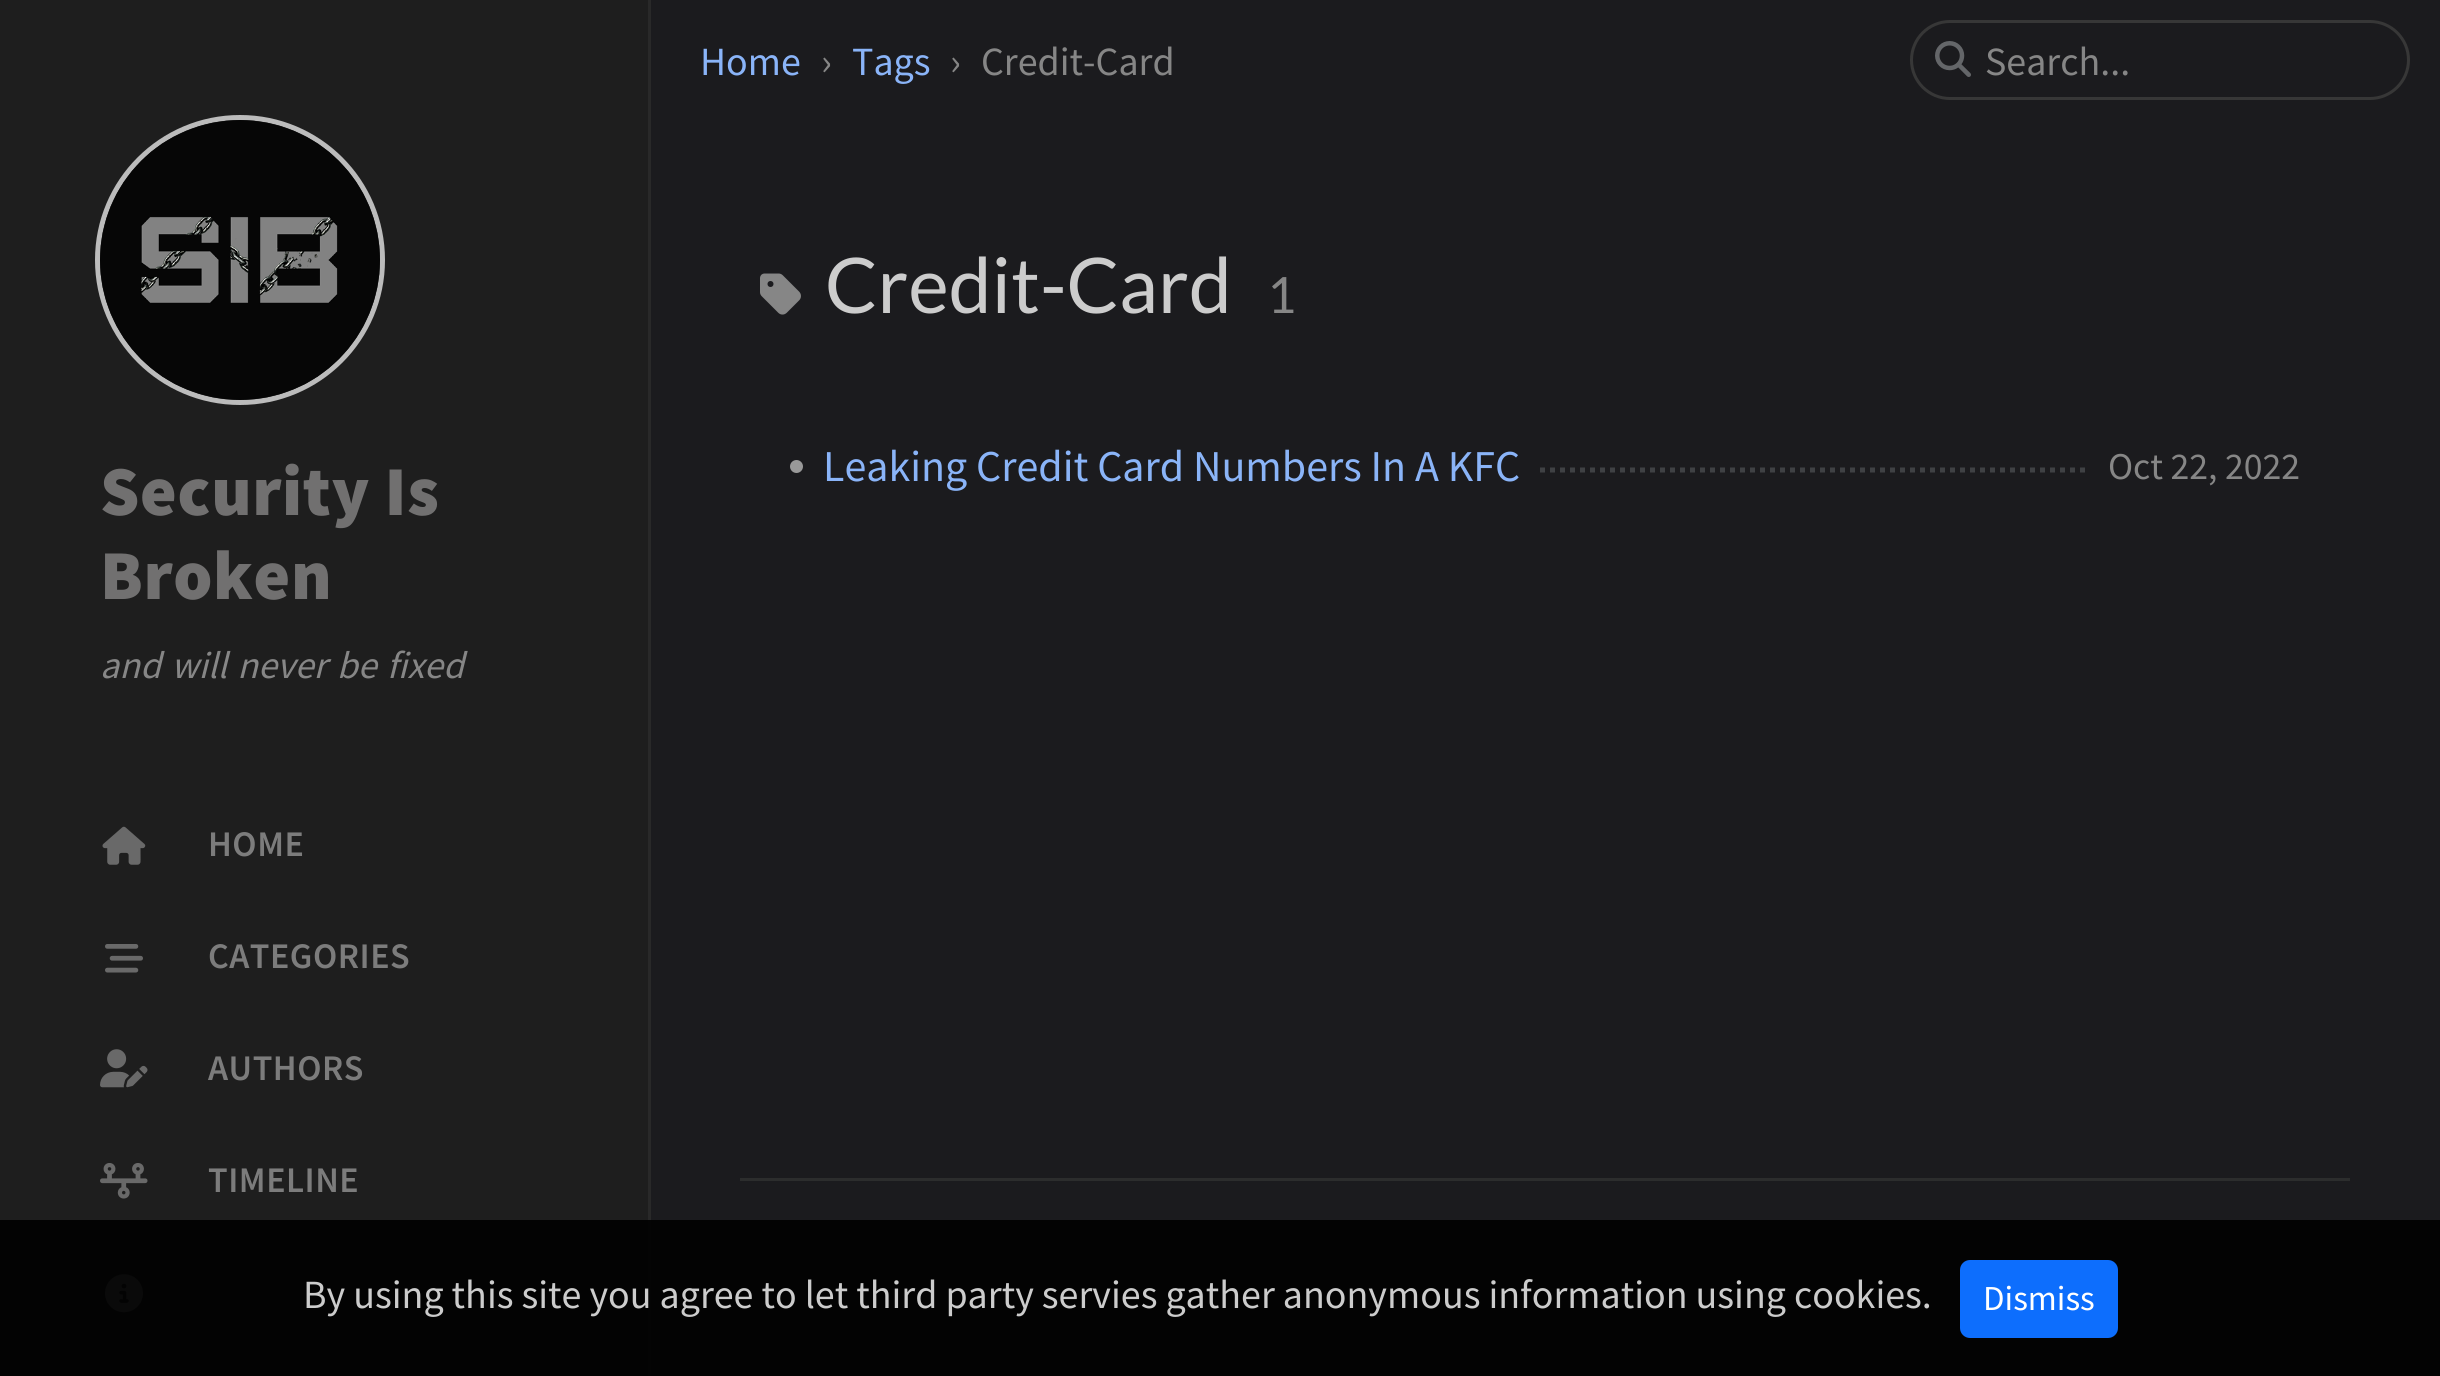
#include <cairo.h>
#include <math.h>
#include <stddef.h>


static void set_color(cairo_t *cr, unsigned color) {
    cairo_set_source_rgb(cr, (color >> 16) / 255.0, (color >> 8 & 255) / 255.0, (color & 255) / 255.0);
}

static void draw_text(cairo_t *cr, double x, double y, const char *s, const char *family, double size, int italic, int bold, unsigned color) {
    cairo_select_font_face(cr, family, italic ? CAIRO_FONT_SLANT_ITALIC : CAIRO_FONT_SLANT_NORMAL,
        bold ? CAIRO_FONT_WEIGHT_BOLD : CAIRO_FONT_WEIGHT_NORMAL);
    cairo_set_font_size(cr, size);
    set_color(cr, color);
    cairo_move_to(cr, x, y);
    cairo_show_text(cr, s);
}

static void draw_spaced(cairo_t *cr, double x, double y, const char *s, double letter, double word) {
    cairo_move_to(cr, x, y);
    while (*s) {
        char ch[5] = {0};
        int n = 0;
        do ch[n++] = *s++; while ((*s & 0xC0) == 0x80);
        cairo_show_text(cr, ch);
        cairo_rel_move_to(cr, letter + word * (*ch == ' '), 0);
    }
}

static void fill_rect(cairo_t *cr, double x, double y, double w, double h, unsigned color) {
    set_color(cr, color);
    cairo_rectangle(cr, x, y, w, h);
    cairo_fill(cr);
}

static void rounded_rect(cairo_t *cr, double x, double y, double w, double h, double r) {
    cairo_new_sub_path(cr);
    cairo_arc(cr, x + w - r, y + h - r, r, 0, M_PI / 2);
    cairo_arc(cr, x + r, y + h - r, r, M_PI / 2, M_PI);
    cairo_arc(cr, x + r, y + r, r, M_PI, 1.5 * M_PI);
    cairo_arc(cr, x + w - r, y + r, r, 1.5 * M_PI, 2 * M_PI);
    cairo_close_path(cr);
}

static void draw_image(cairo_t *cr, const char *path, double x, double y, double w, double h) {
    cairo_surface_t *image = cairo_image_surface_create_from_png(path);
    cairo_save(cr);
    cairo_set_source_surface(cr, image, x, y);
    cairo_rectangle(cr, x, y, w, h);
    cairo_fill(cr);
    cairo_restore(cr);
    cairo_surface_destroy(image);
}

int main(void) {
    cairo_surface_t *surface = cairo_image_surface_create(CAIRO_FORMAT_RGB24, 2440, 1376);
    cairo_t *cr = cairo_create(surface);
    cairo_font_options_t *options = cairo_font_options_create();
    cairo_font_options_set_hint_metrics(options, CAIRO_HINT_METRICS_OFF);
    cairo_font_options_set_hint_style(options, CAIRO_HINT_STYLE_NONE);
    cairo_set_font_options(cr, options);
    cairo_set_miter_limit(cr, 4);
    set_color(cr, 0x1B1B1E);
    cairo_paint(cr);
    fill_rect(cr, 651, 1220, 1789, 156, 0x030303);
    draw_text(cr, 700, 75, "Home", "Source Sans Pro", 40, 0, 0, 0x8AB4F8);
    draw_text(cr, 821, 75, "›", "Source Sans Pro", 40, 0, 0, 0x868686);
    draw_text(cr, 852, 75, "Tags", "Source Sans Pro", 40, 0, 0, 0x8AB4F8);
    draw_text(cr, 950, 75, "›", "Source Sans Pro", 40, 0, 0, 0x868686);
    draw_text(cr, 981, 75, "Credit-Card", "Source Sans Pro", 40, 0, 0, 0x868686);
    rounded_rect(cr, 1911.5, 21.5, 497, 77, 38.5);
    set_color(cr, 0x373737);
    cairo_set_line_width(cr, 3);
    cairo_stroke(cr);
    draw_image(cr, "assets/img1.png", 1935, 41, 36, 36);
    draw_text(cr, 1985, 75, "Search...", "Source Sans Pro", 40, 0, 0, 0x868686);
    draw_image(cr, "assets/img2.png", 760, 273, 41, 42);
    draw_text(cr, 825, 313, "Credit-Card", "Lato", 76.75, 0, 0, 0xCCCCCC);
    draw_text(cr, 1267, 313, "1", "Lato", 50, 0, 0, 0x868686);
    set_color(cr, 0x999999);
    cairo_new_path(cr);
    cairo_arc(cr, 796.5, 466.5, 6.5, 0, 2 * M_PI);
    cairo_fill(cr);
    draw_text(cr, 823, 481, "Leaking Credit Card Numbers In A KFC", "Source Sans Pro", 44, 0, 0, 0x8AB4F8);
    cairo_new_path(cr);
    cairo_move_to(cr, 1540, 470);
    cairo_line_to(cr, 2087.5, 470);
    set_color(cr, 0x3F4144);
    cairo_set_line_width(cr, 5);
    cairo_set_dash(cr, (double[]){5, 5}, 2, 0);
    cairo_stroke(cr);
    draw_text(cr, 2108, 479, "Oct 22, 2022", "Source Sans Pro", 37.75, 0, 0, 0x868686);
    fill_rect(cr, 740, 1178, 1610, 3, 0x2C2D2D);
    fill_rect(cr, 0, 0, 648, 1220, 0x1E1E1E);
    fill_rect(cr, 0, 1220, 648, 156, 0x030303);
    fill_rect(cr, 648, 0, 3, 1220, 0x292929);
    fill_rect(cr, 648, 1220, 3, 156, 0x040404);
    cairo_new_path(cr);
    cairo_arc(cr, 240, 260, 142.5, 0, 2 * M_PI);
    set_color(cr, 0xBCBCBC);
    cairo_set_dash(cr, NULL, 0, 0);
    cairo_stroke(cr);
    draw_image(cr, "assets/img3.png", 100, 120, 280, 280);
    cairo_select_font_face(cr, "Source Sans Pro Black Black", CAIRO_FONT_SLANT_NORMAL, CAIRO_FONT_WEIGHT_NORMAL);
    cairo_set_font_size(cr, 70);
    set_color(cr, 0x717070);
    draw_spaced(cr, 100, 515, "Security Is", 0.6, 0);
    draw_spaced(cr, 100, 599, "Broken", 0.6, 0);
    cairo_select_font_face(cr, "Source Sans Pro", CAIRO_FONT_SLANT_ITALIC, CAIRO_FONT_WEIGHT_NORMAL);
    cairo_set_font_size(cr, 38);
    set_color(cr, 0x868686);
    draw_spaced(cr, 100, 678, "and will never be fixed", 0, 2.5);
    draw_image(cr, "assets/img4.png", 102, 826, 44, 39);
    cairo_select_font_face(cr, "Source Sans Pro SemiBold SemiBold", CAIRO_FONT_SLANT_NORMAL, CAIRO_FONT_WEIGHT_NORMAL);
    cairo_set_font_size(cr, 36);
    set_color(cr, 0x7C7C7C);
    draw_spaced(cr, 208, 856, "HOME", 0.5, 0);
    draw_image(cr, "assets/img5.png", 105, 944, 38, 29);
    draw_spaced(cr, 208, 968, "CATEGORIES", 0.5, 0);
    draw_image(cr, "assets/img6.png", 100, 1049, 48, 39);
    draw_spaced(cr, 208, 1080, "AUTHORS", 0.5, 0);
    draw_image(cr, "assets/img7.png", 100, 1163, 48, 36);
    draw_spaced(cr, 208, 1192, "TIMELINE", 0.5, 0);
    draw_image(cr, "assets/img8.png", 105, 1274, 38, 39);
    draw_text(cr, 303, 1308, "By using this site you agree to let third party servies gather anonymous information using cookies.", "Source Sans Pro", 40, 0, 0, 0xCCCCCC);
    set_color(cr, 0x0D6EFD);
    rounded_rect(cr, 1961.5, 1261.5, 155, 75, 8.5);
    cairo_fill_preserve(cr);
    cairo_set_line_width(cr, 3);
    cairo_stroke(cr);
    draw_text(cr, 1983, 1310, "Dismiss", "Source Sans Pro", 35, 0, 0, 0xFFFFFF);
    cairo_surface_write_to_png(surface, "output.png");
    cairo_font_options_destroy(options);
    cairo_destroy(cr);
    cairo_surface_destroy(surface);
    return 0;
}
